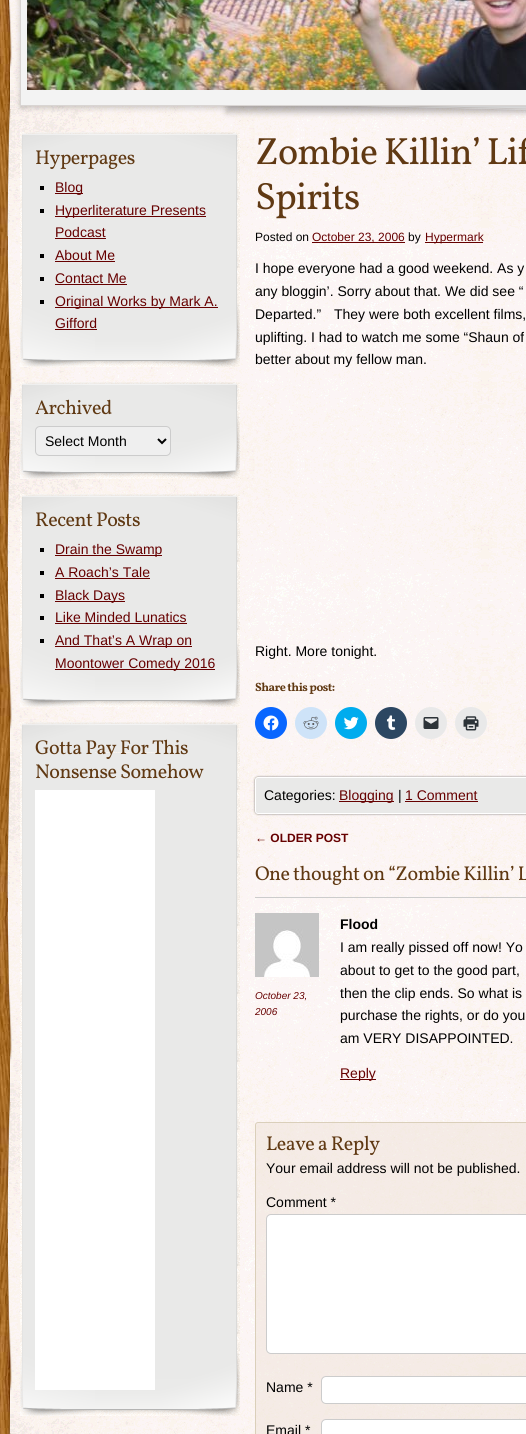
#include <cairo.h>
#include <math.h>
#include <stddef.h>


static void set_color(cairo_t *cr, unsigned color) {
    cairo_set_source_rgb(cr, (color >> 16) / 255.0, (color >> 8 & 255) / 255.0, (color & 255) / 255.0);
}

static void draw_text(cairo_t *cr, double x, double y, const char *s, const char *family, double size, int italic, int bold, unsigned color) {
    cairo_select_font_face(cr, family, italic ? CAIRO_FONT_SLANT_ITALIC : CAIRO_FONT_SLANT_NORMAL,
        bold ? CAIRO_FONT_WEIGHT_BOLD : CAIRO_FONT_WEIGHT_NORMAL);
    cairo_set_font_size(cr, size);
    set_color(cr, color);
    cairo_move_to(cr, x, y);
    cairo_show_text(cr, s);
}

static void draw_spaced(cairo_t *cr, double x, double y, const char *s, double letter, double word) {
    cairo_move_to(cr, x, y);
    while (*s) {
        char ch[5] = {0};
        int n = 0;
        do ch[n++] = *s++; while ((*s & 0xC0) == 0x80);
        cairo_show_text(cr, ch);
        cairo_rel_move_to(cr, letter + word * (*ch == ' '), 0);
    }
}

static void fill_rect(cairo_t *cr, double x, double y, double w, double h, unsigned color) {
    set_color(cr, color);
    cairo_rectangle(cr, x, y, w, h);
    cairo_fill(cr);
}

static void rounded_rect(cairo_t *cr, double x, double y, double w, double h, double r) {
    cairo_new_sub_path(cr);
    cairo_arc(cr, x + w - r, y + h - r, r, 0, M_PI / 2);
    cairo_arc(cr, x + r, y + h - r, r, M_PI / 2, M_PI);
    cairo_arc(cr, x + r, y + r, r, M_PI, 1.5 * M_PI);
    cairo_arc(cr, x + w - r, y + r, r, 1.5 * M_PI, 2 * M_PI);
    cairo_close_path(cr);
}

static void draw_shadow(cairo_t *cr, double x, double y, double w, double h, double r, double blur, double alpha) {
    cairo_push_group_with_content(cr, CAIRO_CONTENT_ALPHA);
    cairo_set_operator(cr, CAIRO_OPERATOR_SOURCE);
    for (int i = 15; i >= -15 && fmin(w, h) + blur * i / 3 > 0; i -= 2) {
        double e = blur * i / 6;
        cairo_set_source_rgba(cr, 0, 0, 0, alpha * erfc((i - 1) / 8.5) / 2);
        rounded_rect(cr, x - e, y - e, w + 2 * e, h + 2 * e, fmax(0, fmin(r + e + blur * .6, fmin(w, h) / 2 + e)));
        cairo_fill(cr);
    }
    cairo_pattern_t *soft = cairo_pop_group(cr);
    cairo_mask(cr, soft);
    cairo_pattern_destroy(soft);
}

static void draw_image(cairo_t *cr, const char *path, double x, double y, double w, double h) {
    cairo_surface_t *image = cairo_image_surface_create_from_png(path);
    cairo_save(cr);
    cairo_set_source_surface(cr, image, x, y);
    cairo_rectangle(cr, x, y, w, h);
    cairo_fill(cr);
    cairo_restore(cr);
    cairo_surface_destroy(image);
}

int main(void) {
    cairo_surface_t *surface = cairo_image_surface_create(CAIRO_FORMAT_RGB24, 526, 1434);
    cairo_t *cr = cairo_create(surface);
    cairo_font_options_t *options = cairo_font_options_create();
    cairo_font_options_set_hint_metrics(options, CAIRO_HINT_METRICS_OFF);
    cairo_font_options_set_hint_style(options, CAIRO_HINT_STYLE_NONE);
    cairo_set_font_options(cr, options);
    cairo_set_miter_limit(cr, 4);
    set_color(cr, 0xFFFFFF);
    cairo_paint(cr);
    draw_image(cr, "assets/img1.png", 0, 0, 12, 1434);
    draw_image(cr, "assets/img3.png", 5, 0, 521, 1434);
    set_color(cr, 0x000000);
    draw_shadow(cr, 226, -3, 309, 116, 0, 3, 0.2);
    set_color(cr, 0xF3F3F3);
    cairo_new_path(cr);
    cairo_move_to(cr, 227, -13);
    cairo_line_to(cr, 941, 3);
    cairo_line_to(cr, 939, 119);
    cairo_line_to(cr, 225, 103);
    cairo_close_path(cr);
    cairo_fill(cr);
    cairo_new_path(cr);
    cairo_move_to(cr, 228, -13);
    cairo_line_to(cr, 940.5, 3.5);
    cairo_line_to(cr, 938, 118.5);
    cairo_line_to(cr, 225.5, 102);
    cairo_close_path(cr);
    set_color(cr, 0xD9D5D3);
    cairo_set_line_width(cr, 1);
    cairo_stroke(cr);
    set_color(cr, 0x000000);
    draw_shadow(cr, 20, -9, 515, 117, 0, 3, 0.2);
    set_color(cr, 0xF3F3F3);
    cairo_rectangle(cr, 20.5, -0.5, 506, 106);
    cairo_fill_preserve(cr);
    set_color(cr, 0xD9D5D3);
    cairo_stroke(cr);
    draw_image(cr, "assets/img2.png", 27, 0, 499, 90);
    fill_rect(cr, 32, 162, 196, 142, 0xE9E9E8);
    draw_image(cr, "assets/img4.png", 20, 132, 220, 235);
    cairo_select_font_face(cr, "Vollkorn", CAIRO_FONT_SLANT_NORMAL, CAIRO_FONT_WEIGHT_NORMAL);
    cairo_set_font_size(cr, 20);
    set_color(cr, 0x603913);
    draw_spaced(cr, 35, 164, "Hyperpages", -0.5, 0);
    fill_rect(cr, 40, 186, 4, 4, 0x000000);
    fill_rect(cr, 55, 193, 28, 1, 0x660000);
    draw_text(cr, 55, 192, "Blog", "Liberation Sans", 14, 0, 0, 0x660000);
    fill_rect(cr, 40, 209, 4, 4, 0x000000);
    fill_rect(cr, 55, 216, 151, 1, 0x660000);
    draw_text(cr, 55, 215, "Hyperliterature Presents", "Liberation Sans", 14, 0, 0, 0x660000);
    draw_text(cr, 55, 237, "Podcast", "Liberation Sans", 14, 0, 0, 0x660000);
    fill_rect(cr, 55, 238, 51, 1, 0x660000);
    fill_rect(cr, 40, 254, 4, 4, 0x000000);
    draw_text(cr, 55, 260, "About Me", "Liberation Sans", 14, 0, 0, 0x660000);
    fill_rect(cr, 55, 261, 60, 1, 0x660000);
    fill_rect(cr, 40, 277, 4, 4, 0x000000);
    draw_text(cr, 55, 283, "Contact Me", "Liberation Sans", 14, 0, 0, 0x660000);
    fill_rect(cr, 55, 284, 72, 1, 0x660000);
    fill_rect(cr, 40, 300, 4, 4, 0x000000);
    fill_rect(cr, 55, 307, 163, 1, 0x660000);
    draw_text(cr, 55, 306, "Original Works by Mark A.", "Liberation Sans", 14, 0, 0, 0x660000);
    draw_text(cr, 55, 328, "Gifford", "Liberation Sans", 14, 0, 0, 0x660000);
    fill_rect(cr, 55, 329, 42, 1, 0x660000);
    fill_rect(cr, 32, 412, 196, 4, 0xE9E9E8);
    draw_image(cr, "assets/img5.png", 20, 382, 220, 97);
    cairo_select_font_face(cr, "Vollkorn", CAIRO_FONT_SLANT_NORMAL, CAIRO_FONT_WEIGHT_NORMAL);
    cairo_set_font_size(cr, 20);
    set_color(cr, 0x603913);
    draw_spaced(cr, 35, 414, "Archived", -0.5, 0);
    set_color(cr, 0xEFEFEF);
    rounded_rect(cr, 35.5, 426.5, 135, 29, 4.5);
    cairo_fill_preserve(cr);
    set_color(cr, 0xCCCCCC);
    cairo_stroke(cr);
    cairo_new_path(cr);
    cairo_move_to(cr, 158, 439);
    cairo_line_to(cr, 162, 443);
    cairo_line_to(cr, 166, 439);
    set_color(cr, 0x000000);
    cairo_set_line_width(cr, 2);
    cairo_stroke(cr);
    draw_text(cr, 45, 446, "Select Month", "Liberation Sans", 14, 0, 0, 0x000000);
    fill_rect(cr, 32, 524, 196, 120, 0xE9E9E8);
    draw_image(cr, "assets/img6.png", 20, 494, 220, 213);
    cairo_select_font_face(cr, "Vollkorn", CAIRO_FONT_SLANT_NORMAL, CAIRO_FONT_WEIGHT_NORMAL);
    cairo_set_font_size(cr, 20);
    set_color(cr, 0x603913);
    draw_spaced(cr, 35, 526, "Recent Posts", -0.5, 0);
    fill_rect(cr, 40, 548, 4, 4, 0x000000);
    fill_rect(cr, 55, 555, 107, 1, 0x660000);
    draw_text(cr, 55, 554, "Drain the Swamp", "Liberation Sans", 14, 0, 0, 0x660000);
    fill_rect(cr, 40, 571, 4, 4, 0x000000);
    draw_text(cr, 55, 577, "A Roach’s Tale", "Liberation Sans", 14, 0, 0, 0x660000);
    fill_rect(cr, 55, 578, 95, 1, 0x660000);
    fill_rect(cr, 40, 594, 4, 4, 0x000000);
    fill_rect(cr, 55, 601, 70, 1, 0x660000);
    draw_text(cr, 55, 600, "Black Days", "Liberation Sans", 14, 0, 0, 0x660000);
    fill_rect(cr, 40, 616, 4, 4, 0x000000);
    draw_text(cr, 55, 622, "Like Minded Lunatics", "Liberation Sans", 14, 0, 0, 0x660000);
    fill_rect(cr, 55, 623, 132, 1, 0x660000);
    fill_rect(cr, 40, 639, 4, 4, 0x000000);
    fill_rect(cr, 55, 646, 137, 1, 0x660000);
    draw_text(cr, 55, 645, "And That’s A Wrap on", "Liberation Sans", 14, 0, 0, 0x660000);
    fill_rect(cr, 55, 669, 160, 1, 0x660000);
    draw_text(cr, 55, 668, "Moontower Comedy 2016", "Liberation Sans", 14, 0, 0, 0x660000);
    fill_rect(cr, 32, 753, 196, 600, 0xE9E9E8);
    draw_image(cr, "assets/img7.png", 20, 722, 220, 694);
    cairo_select_font_face(cr, "Vollkorn", CAIRO_FONT_SLANT_NORMAL, CAIRO_FONT_WEIGHT_NORMAL);
    cairo_set_font_size(cr, 20);
    set_color(cr, 0x603913);
    draw_spaced(cr, 35, 754, "Gotta Pay For This", -0.5, 0);
    draw_spaced(cr, 35, 778, "Nonsense Somehow", -0.5, 0);
    fill_rect(cr, 35, 790, 120, 600, 0xFFFFFF);
    cairo_set_font_size(cr, 38);
    set_color(cr, 0x603913);
    draw_spaced(cr, 255, 164, "Zombie Killin’ Lif", -1, 0);
    draw_spaced(cr, 255, 209, "Spirits", -1, 0);
    draw_text(cr, 255, 241, "Posted on", "Liberation Sans", 12, 0, 0, 0x000000);
    fill_rect(cr, 312, 242, 93, 1, 0x660000);
    draw_text(cr, 312, 241, "October 23, 2006", "Liberation Sans", 12, 0, 0, 0x660000);
    draw_text(cr, 408, 241, "by", "Liberation Sans", 12, 0, 0, 0x000000);
    fill_rect(cr, 425, 242, 58, 1, 0x660000);
    draw_text(cr, 425, 241, "Hypermark", "Liberation Sans", 12, 0, 0, 0x660000);
    draw_text(cr, 255, 273, "I hope everyone had a good weekend. As y", "Liberation Sans", 14, 0, 0, 0x000000);
    draw_text(cr, 255, 296, "any bloggin’. Sorry about that. We did see “", "Liberation Sans", 14, 0, 0, 0x000000);
    draw_text(cr, 255, 319, "Departed.”", "Liberation Sans", 14, 0, 0, 0x000000);
    draw_text(cr, 334, 319, "They were both excellent films,", "Liberation Sans", 14, 0, 0, 0x000000);
    draw_text(cr, 255, 342, "uplifting. I had to watch me some “Shaun of", "Liberation Sans", 14, 0, 0, 0x000000);
    draw_text(cr, 255, 364, "better about my fellow man.", "Liberation Sans", 14, 0, 0, 0x000000);
    draw_text(cr, 255, 656, "Right. More tonight.", "Liberation Sans", 14, 0, 0, 0x000000);
    cairo_select_font_face(cr, "Vollkorn", CAIRO_FONT_SLANT_NORMAL, CAIRO_FONT_WEIGHT_BOLD);
    cairo_set_font_size(cr, 12);
    set_color(cr, 0x603913);
    draw_spaced(cr, 255, 691, "Share this post:", -0.5, 0);
    set_color(cr, 0x0866FF);
    cairo_new_path(cr);
    cairo_arc(cr, 271, 723, 16, 0, 2 * M_PI);
    cairo_fill(cr);
    draw_image(cr, "assets/img8.png", 263, 715, 16, 16);
    set_color(cr, 0xCEE3F8);
    cairo_arc(cr, 311, 723, 16, 0, 2 * M_PI);
    cairo_fill(cr);
    draw_image(cr, "assets/img9.png", 303, 716, 16, 14);
    set_color(cr, 0x00ACEE);
    cairo_arc(cr, 351, 723, 16, 0, 2 * M_PI);
    cairo_fill(cr);
    draw_image(cr, "assets/img10.png", 343, 717, 16, 13);
    set_color(cr, 0x2C4762);
    cairo_arc(cr, 391, 723, 16, 0, 2 * M_PI);
    cairo_fill(cr);
    draw_image(cr, "assets/img11.png", 386, 715, 10, 15);
    set_color(cr, 0xE9E9E9);
    cairo_arc(cr, 431, 723, 16, 0, 2 * M_PI);
    cairo_fill(cr);
    draw_image(cr, "assets/img12.png", 423, 717, 16, 12);
    cairo_arc(cr, 471, 723, 16, 0, 2 * M_PI);
    cairo_fill(cr);
    draw_image(cr, "assets/img13.png", 463, 716, 16, 15);
    set_color(cr, 0x000000);
    draw_shadow(cr, 255, 777, 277, 37, 3, 1, 0.5);
    set_color(cr, 0xE9E9E8);
    rounded_rect(cr, 255.5, 777.5, 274, 36, 2.5);
    cairo_fill_preserve(cr);
    set_color(cr, 0xFFFFFF);
    cairo_set_line_width(cr, 1);
    cairo_stroke(cr);
    draw_text(cr, 264, 800, "Categories:", "Liberation Sans", 14, 0, 0, 0x000000);
    fill_rect(cr, 339, 801, 55, 1, 0x660000);
    draw_text(cr, 339, 800, "Blogging", "Liberation Sans", 14, 0, 0, 0x660000);
    draw_text(cr, 398, 800, "|", "Liberation Sans", 14, 0, 0, 0x000000);
    draw_text(cr, 405, 800, "1 Comment", "Liberation Sans", 14, 0, 0, 0x660000);
    fill_rect(cr, 405, 801, 73, 1, 0x660000);
    draw_text(cr, 255, 842, "← OLDER POST", "Liberation Sans", 12, 0, 1, 0x660000);
    cairo_select_font_face(cr, "Vollkorn", CAIRO_FONT_SLANT_NORMAL, CAIRO_FONT_WEIGHT_NORMAL);
    cairo_set_font_size(cr, 20);
    set_color(cr, 0x603913);
    draw_spaced(cr, 255, 880, "One thought on “Zombie Killin’ L", -0.5, 0);
    fill_rect(cr, 255, 897, 271, 1, 0xCCCCCC);
    draw_image(cr, "assets/img14.png", 255, 913, 64, 64);
    draw_text(cr, 255, 999, "October 23,", "Liberation Sans", 10, 1, 0, 0x660000);
    draw_text(cr, 255, 1015, "2006", "Liberation Sans", 10, 1, 0, 0x660000);
    draw_text(cr, 340, 929, "Flood", "Liberation Sans", 14, 0, 1, 0x000000);
    draw_text(cr, 340, 952, "I am really pissed off now! Yo", "Liberation Sans", 14, 0, 0, 0x000000);
    draw_text(cr, 340, 975, "about to get to the good part,", "Liberation Sans", 14, 0, 0, 0x000000);
    draw_text(cr, 340, 998, "then the clip ends. So what is", "Liberation Sans", 14, 0, 0, 0x000000);
    draw_text(cr, 340, 1020, "purchase the rights, or do you", "Liberation Sans", 14, 0, 0, 0x000000);
    draw_text(cr, 340, 1043, "am VERY DISAPPOINTED.", "Liberation Sans", 14, 0, 0, 0x000000);
    fill_rect(cr, 340, 1079, 36, 1, 0x660000);
    draw_text(cr, 340, 1078, "Reply", "Liberation Sans", 14, 0, 0, 0x660000);
    cairo_set_source_rgba(cr, 0.937, 0.89, 0.847, 0.5);
    rounded_rect(cr, 255.5, 1122.5, 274, 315, 2.5);
    cairo_fill_preserve(cr);
    set_color(cr, 0xDACFBA);
    cairo_stroke(cr);
    cairo_select_font_face(cr, "Vollkorn", CAIRO_FONT_SLANT_NORMAL, CAIRO_FONT_WEIGHT_NORMAL);
    cairo_set_font_size(cr, 20);
    set_color(cr, 0x603913);
    draw_spaced(cr, 266, 1150, "Leave a Reply", -0.5, 0);
    draw_text(cr, 266, 1173, "Your email address will not be published.", "Liberation Sans", 14, 0, 0, 0x000000);
    draw_text(cr, 266, 1207, "Comment *", "Liberation Sans", 14, 0, 0, 0x000000);
    set_color(cr, 0xFFFFFF);
    rounded_rect(cr, 266.5, 1214.5, 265, 139, 4.5);
    cairo_fill_preserve(cr);
    set_color(cr, 0xCCCCCC);
    cairo_stroke(cr);
    draw_text(cr, 266, 1392, "Name *", "Liberation Sans", 14, 0, 0, 0x000000);
    set_color(cr, 0xFFFFFF);
    rounded_rect(cr, 321.5, 1376.5, 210, 27, 4.5);
    cairo_fill_preserve(cr);
    set_color(cr, 0xCCCCCC);
    cairo_stroke(cr);
    draw_text(cr, 266, 1435, "Email *", "Liberation Sans", 14, 0, 0, 0x000000);
    set_color(cr, 0xFFFFFF);
    rounded_rect(cr, 321.5, 1419.5, 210, 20, 4.5);
    cairo_fill_preserve(cr);
    set_color(cr, 0xCCCCCC);
    cairo_stroke(cr);
    cairo_surface_write_to_png(surface, "output.png");
    cairo_font_options_destroy(options);
    cairo_destroy(cr);
    cairo_surface_destroy(surface);
    return 0;
}
